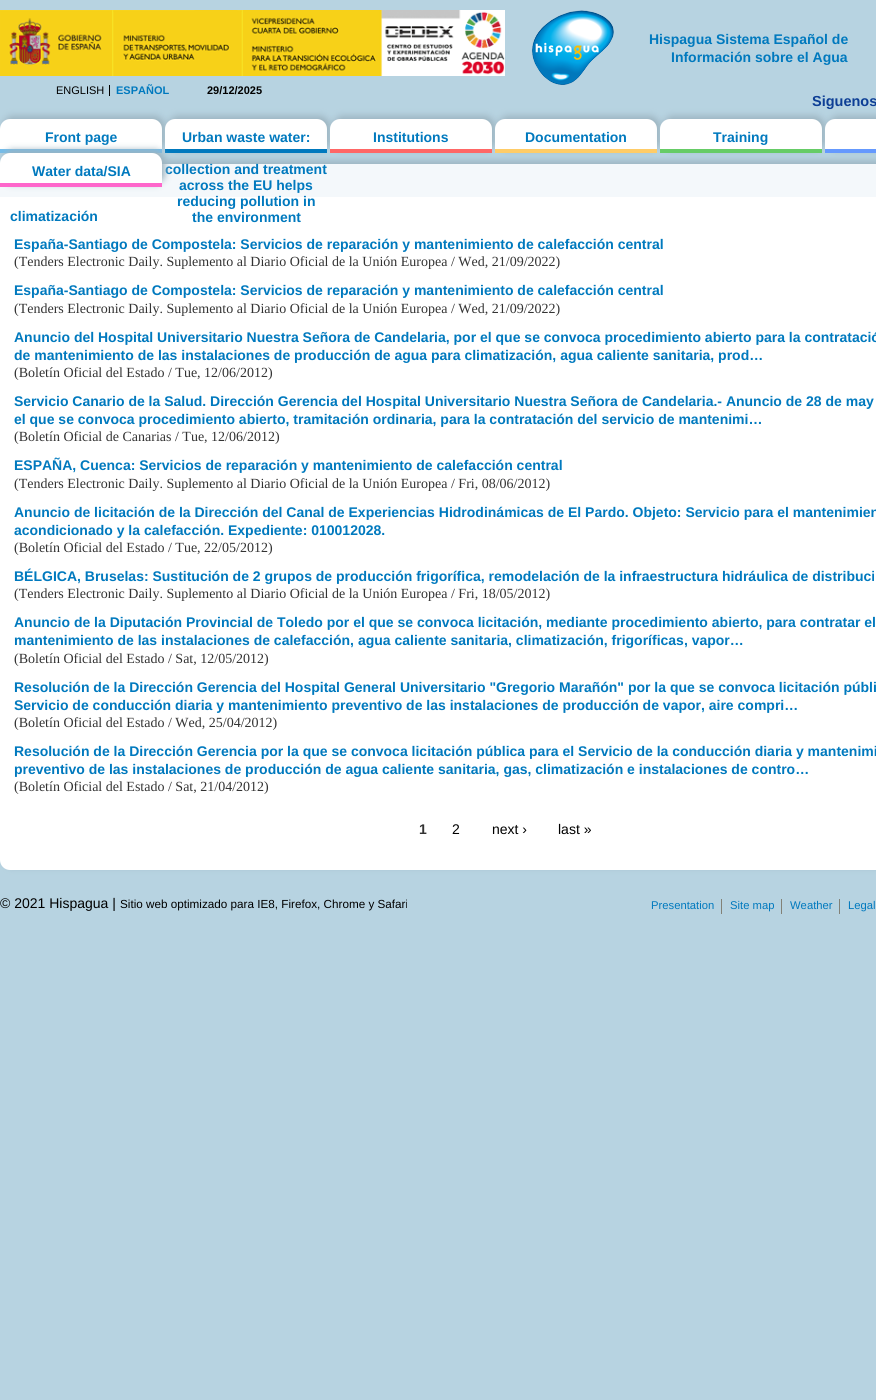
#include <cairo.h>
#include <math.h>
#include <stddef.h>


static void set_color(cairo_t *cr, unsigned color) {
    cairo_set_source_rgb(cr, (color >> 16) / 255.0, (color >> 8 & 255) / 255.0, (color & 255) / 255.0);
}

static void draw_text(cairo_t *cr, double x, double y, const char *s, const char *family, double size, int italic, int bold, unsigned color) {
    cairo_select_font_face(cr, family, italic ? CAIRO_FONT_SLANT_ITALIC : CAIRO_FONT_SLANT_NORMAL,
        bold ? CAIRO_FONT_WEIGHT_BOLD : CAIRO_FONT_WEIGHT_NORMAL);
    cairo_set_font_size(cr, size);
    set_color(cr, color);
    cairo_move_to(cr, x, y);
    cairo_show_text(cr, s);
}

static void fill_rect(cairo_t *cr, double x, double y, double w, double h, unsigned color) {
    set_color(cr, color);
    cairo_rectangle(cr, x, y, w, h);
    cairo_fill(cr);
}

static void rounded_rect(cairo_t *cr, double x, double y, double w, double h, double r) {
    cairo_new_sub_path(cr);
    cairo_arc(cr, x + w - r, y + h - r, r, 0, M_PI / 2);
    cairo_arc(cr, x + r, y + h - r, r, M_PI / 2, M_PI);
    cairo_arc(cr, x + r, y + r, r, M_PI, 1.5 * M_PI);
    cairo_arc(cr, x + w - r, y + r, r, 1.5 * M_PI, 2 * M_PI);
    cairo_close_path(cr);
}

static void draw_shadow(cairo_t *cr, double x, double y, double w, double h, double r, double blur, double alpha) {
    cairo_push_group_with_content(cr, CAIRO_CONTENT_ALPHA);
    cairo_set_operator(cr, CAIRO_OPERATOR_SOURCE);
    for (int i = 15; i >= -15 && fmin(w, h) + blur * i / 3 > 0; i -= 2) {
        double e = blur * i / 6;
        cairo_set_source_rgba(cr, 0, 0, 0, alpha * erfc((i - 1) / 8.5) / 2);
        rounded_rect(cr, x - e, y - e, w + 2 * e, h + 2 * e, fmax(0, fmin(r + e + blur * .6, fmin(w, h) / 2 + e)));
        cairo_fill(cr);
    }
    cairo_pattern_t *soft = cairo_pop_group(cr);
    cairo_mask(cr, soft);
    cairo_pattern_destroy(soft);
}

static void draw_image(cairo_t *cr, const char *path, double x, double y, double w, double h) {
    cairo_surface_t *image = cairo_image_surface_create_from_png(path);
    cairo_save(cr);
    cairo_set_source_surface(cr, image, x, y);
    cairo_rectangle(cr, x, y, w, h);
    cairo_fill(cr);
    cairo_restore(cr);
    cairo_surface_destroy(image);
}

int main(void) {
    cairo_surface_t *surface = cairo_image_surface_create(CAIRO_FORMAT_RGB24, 876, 1400);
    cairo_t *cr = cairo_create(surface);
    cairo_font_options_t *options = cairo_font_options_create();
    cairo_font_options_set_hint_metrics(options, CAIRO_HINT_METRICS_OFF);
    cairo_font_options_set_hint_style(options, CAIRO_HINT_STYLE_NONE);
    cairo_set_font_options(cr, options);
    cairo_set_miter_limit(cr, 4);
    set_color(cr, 0xB7D3E1);
    cairo_paint(cr);
    draw_image(cr, "assets/img1.png", 0, 10, 505, 66);
    draw_image(cr, "assets/img2.png", 532, 10, 82, 75);
    draw_text(cr, 649, 44, "Hispagua Sistema Español de", "Liberation Sans", 14, 0, 1, 0x0079BE);
    draw_text(cr, 671, 62, "Información sobre el Agua", "Liberation Sans", 14, 0, 1, 0x0079BE);
    fill_rect(cr, 109, 85, 1, 11, 0x000000);
    draw_text(cr, 56, 94, "ENGLISH", "Liberation Sans", 11, 0, 0, 0x000000);
    draw_text(cr, 116, 94, "ESPAÑOL", "Liberation Sans", 11, 0, 1, 0x0079BE);
    draw_text(cr, 207, 94, "29/12/2025", "Liberation Sans", 11, 0, 1, 0x000000);
    draw_text(cr, 812, 106, "Siguenos", "Liberation Sans", 14.5, 0, 1, 0x0D3E95);
    set_color(cr, 0x9CB3BF);
    draw_shadow(cr, 3, 116, 162, 34, 10, 3.5, 1);
    draw_shadow(cr, 3, 161, 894, 706, 10, 3.5, 1);
    set_color(cr, 0xFFFFFF);
    cairo_new_path(cr);
    cairo_move_to(cr, 10, 119);
    cairo_line_to(cr, 152, 119);
    cairo_curve_to(cr, 157.5, 119, 162, 123.5, 162, 129);
    cairo_line_to(cr, 162, 153);
    cairo_line_to(cr, 0, 153);
    cairo_line_to(cr, 0, 129);
    cairo_curve_to(cr, 0, 123.5, 4.5, 119, 10, 119);
    cairo_close_path(cr);
    cairo_fill(cr);
    fill_rect(cr, 0, 149, 162, 4, 0x72BCEB);
    draw_text(cr, 45, 142, "Front page", "Liberation Sans", 14, 0, 1, 0x0079BE);
    set_color(cr, 0x9CB3BF);
    draw_shadow(cr, 168, 116, 162, 34, 10, 3.5, 1);
    set_color(cr, 0xFFFFFF);
    cairo_new_path(cr);
    cairo_move_to(cr, 175, 119);
    cairo_line_to(cr, 317, 119);
    cairo_curve_to(cr, 322.5, 119, 327, 123.5, 327, 129);
    cairo_line_to(cr, 327, 153);
    cairo_line_to(cr, 165, 153);
    cairo_line_to(cr, 165, 129);
    cairo_curve_to(cr, 165, 123.5, 169.5, 119, 175, 119);
    cairo_close_path(cr);
    cairo_fill(cr);
    fill_rect(cr, 165, 149, 162, 4, 0x0079BE);
    draw_text(cr, 182, 142, "Urban waste water:", "Liberation Sans", 14, 0, 1, 0x0079BE);
    set_color(cr, 0xFFFFFF);
    rounded_rect(cr, 0, 164, 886, 706, 10);
    cairo_fill(cr);
    fill_rect(cr, 0, 164, 876, 33, 0xF4F8FB);
    draw_text(cr, 165, 174, "collection and treatment", "Liberation Sans", 14, 0, 1, 0x0079BE);
    draw_text(cr, 179, 190, "across the EU helps", "Liberation Sans", 14, 0, 1, 0x0079BE);
    draw_text(cr, 177, 206, "reducing pollution in", "Liberation Sans", 14, 0, 1, 0x0079BE);
    draw_text(cr, 192, 222, "the environment", "Liberation Sans", 14, 0, 1, 0x0079BE);
    set_color(cr, 0x9CB3BF);
    draw_shadow(cr, 333, 116, 162, 34, 10, 3.5, 1);
    set_color(cr, 0xFFFFFF);
    cairo_new_path(cr);
    cairo_move_to(cr, 340, 119);
    cairo_line_to(cr, 482, 119);
    cairo_curve_to(cr, 487.5, 119, 492, 123.5, 492, 129);
    cairo_line_to(cr, 492, 153);
    cairo_line_to(cr, 330, 153);
    cairo_line_to(cr, 330, 129);
    cairo_curve_to(cr, 330, 123.5, 334.5, 119, 340, 119);
    cairo_close_path(cr);
    cairo_fill(cr);
    fill_rect(cr, 330, 149, 162, 4, 0xFF6766);
    draw_text(cr, 373, 142, "Institutions", "Liberation Sans", 14, 0, 1, 0x0079BE);
    set_color(cr, 0x9CB3BF);
    draw_shadow(cr, 498, 116, 162, 34, 10, 3.5, 1);
    set_color(cr, 0xFFFFFF);
    cairo_new_path(cr);
    cairo_move_to(cr, 505, 119);
    cairo_line_to(cr, 647, 119);
    cairo_curve_to(cr, 652.5, 119, 657, 123.5, 657, 129);
    cairo_line_to(cr, 657, 153);
    cairo_line_to(cr, 495, 153);
    cairo_line_to(cr, 495, 129);
    cairo_curve_to(cr, 495, 123.5, 499.5, 119, 505, 119);
    cairo_close_path(cr);
    cairo_fill(cr);
    fill_rect(cr, 495, 149, 162, 4, 0xFFCC67);
    draw_text(cr, 525, 142, "Documentation", "Liberation Sans", 14, 0, 1, 0x0079BE);
    set_color(cr, 0x9CB3BF);
    draw_shadow(cr, 663, 116, 162, 34, 10, 3.5, 1);
    set_color(cr, 0xFFFFFF);
    cairo_new_path(cr);
    cairo_move_to(cr, 670, 119);
    cairo_line_to(cr, 812, 119);
    cairo_curve_to(cr, 817.5, 119, 822, 123.5, 822, 129);
    cairo_line_to(cr, 822, 153);
    cairo_line_to(cr, 660, 153);
    cairo_line_to(cr, 660, 129);
    cairo_curve_to(cr, 660, 123.5, 664.5, 119, 670, 119);
    cairo_close_path(cr);
    cairo_fill(cr);
    fill_rect(cr, 660, 149, 162, 4, 0x66CC66);
    draw_text(cr, 713, 142, "Training", "Liberation Sans", 14, 0, 1, 0x0079BE);
    set_color(cr, 0x9CB3BF);
    draw_shadow(cr, 828, 116, 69, 34, 10, 3.5, 1);
    set_color(cr, 0xFFFFFF);
    cairo_new_path(cr);
    cairo_move_to(cr, 835, 119);
    cairo_line_to(cr, 876, 119);
    cairo_curve_to(cr, 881.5, 119, 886, 123.5, 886, 129);
    cairo_line_to(cr, 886, 153);
    cairo_line_to(cr, 825, 153);
    cairo_line_to(cr, 825, 129);
    cairo_curve_to(cr, 825, 123.5, 829.5, 119, 835, 119);
    cairo_close_path(cr);
    cairo_fill(cr);
    fill_rect(cr, 825, 149, 51, 4, 0x6599FE);
    set_color(cr, 0x9CB3BF);
    draw_shadow(cr, 3, 150, 162, 34, 10, 3.5, 1);
    set_color(cr, 0xFFFFFF);
    cairo_new_path(cr);
    cairo_move_to(cr, 10, 153);
    cairo_line_to(cr, 152, 153);
    cairo_curve_to(cr, 157.5, 153, 162, 157.5, 162, 163);
    cairo_line_to(cr, 162, 187);
    cairo_line_to(cr, 0, 187);
    cairo_line_to(cr, 0, 163);
    cairo_curve_to(cr, 0, 157.5, 4.5, 153, 10, 153);
    cairo_close_path(cr);
    cairo_fill(cr);
    fill_rect(cr, 0, 183, 162, 4, 0xFE66CB);
    draw_text(cr, 32, 176, "Water data/SIA", "Liberation Sans", 14, 0, 1, 0x0079BE);
    draw_text(cr, 10, 221, "climatización", "Liberation Sans", 14, 0, 1, 0x0079BE);
    draw_text(cr, 14, 249, "España-Santiago de Compostela: Servicios de reparación y mantenimiento de calefacción central", "Liberation Sans", 14, 0, 1, 0x0079BE);
    draw_text(cr, 14, 266, "(Tenders Electronic Daily. Suplemento al Diario Oficial de la Unión Europea / Wed, 21/09/2022)", "Liberation Serif", 14, 0, 0, 0x333333);
    draw_text(cr, 14, 295, "España-Santiago de Compostela: Servicios de reparación y mantenimiento de calefacción central", "Liberation Sans", 14, 0, 1, 0x0079BE);
    draw_text(cr, 14, 313, "(Tenders Electronic Daily. Suplemento al Diario Oficial de la Unión Europea / Wed, 21/09/2022)", "Liberation Serif", 14, 0, 0, 0x333333);
    draw_text(cr, 14, 342, "Anuncio del Hospital Universitario Nuestra Señora de Candelaria, por el que se convoca procedimiento abierto para la contratació", "Liberation Sans", 14, 0, 1, 0x0079BE);
    draw_text(cr, 14, 360, "de mantenimiento de las instalaciones de producción de agua para climatización, agua caliente sanitaria, prod…", "Liberation Sans", 14, 0, 1, 0x0079BE);
    draw_text(cr, 14, 377, "(Boletín Oficial del Estado / Tue, 12/06/2012)", "Liberation Serif", 14, 0, 0, 0x333333);
    draw_text(cr, 14, 406, "Servicio Canario de la Salud. Dirección Gerencia del Hospital Universitario Nuestra Señora de Candelaria.- Anuncio de 28 de may", "Liberation Sans", 14, 0, 1, 0x0079BE);
    draw_text(cr, 14, 424, "el que se convoca procedimiento abierto, tramitación ordinaria, para la contratación del servicio de mantenimi…", "Liberation Sans", 14, 0, 1, 0x0079BE);
    draw_text(cr, 14, 441, "(Boletín Oficial de Canarias / Tue, 12/06/2012)", "Liberation Serif", 14, 0, 0, 0x333333);
    draw_text(cr, 14, 470, "ESPAÑA, Cuenca: Servicios de reparación y mantenimiento de calefacción central", "Liberation Sans", 14, 0, 1, 0x0079BE);
    draw_text(cr, 14, 488, "(Tenders Electronic Daily. Suplemento al Diario Oficial de la Unión Europea / Fri, 08/06/2012)", "Liberation Serif", 14, 0, 0, 0x333333);
    draw_text(cr, 14, 517, "Anuncio de licitación de la Dirección del Canal de Experiencias Hidrodinámicas de El Pardo. Objeto: Servicio para el mantenimien", "Liberation Sans", 14, 0, 1, 0x0079BE);
    draw_text(cr, 14, 535, "acondicionado y la calefacción. Expediente: 010012028.", "Liberation Sans", 14, 0, 1, 0x0079BE);
    draw_text(cr, 14, 552, "(Boletín Oficial del Estado / Tue, 22/05/2012)", "Liberation Serif", 14, 0, 0, 0x333333);
    draw_text(cr, 14, 581, "BÉLGICA, Bruselas: Sustitución de 2 grupos de producción frigorífica, remodelación de la infraestructura hidráulica de distribuci", "Liberation Sans", 14, 0, 1, 0x0079BE);
    draw_text(cr, 14, 598, "(Tenders Electronic Daily. Suplemento al Diario Oficial de la Unión Europea / Fri, 18/05/2012)", "Liberation Serif", 14, 0, 0, 0x333333);
    draw_text(cr, 14, 627, "Anuncio de la Diputación Provincial de Toledo por el que se convoca licitación, mediante procedimiento abierto, para contratar el", "Liberation Sans", 14, 0, 1, 0x0079BE);
    draw_text(cr, 14, 645, "mantenimiento de las instalaciones de calefacción, agua caliente sanitaria, climatización, frigoríficas, vapor…", "Liberation Sans", 14, 0, 1, 0x0079BE);
    draw_text(cr, 14, 663, "(Boletín Oficial del Estado / Sat, 12/05/2012)", "Liberation Serif", 14, 0, 0, 0x333333);
    draw_text(cr, 14, 692, "Resolución de la Dirección Gerencia del Hospital General Universitario \"Gregorio Marañón\" por la que se convoca licitación públi", "Liberation Sans", 14, 0, 1, 0x0079BE);
    draw_text(cr, 14, 710, "Servicio de conducción diaria y mantenimiento preventivo de las instalaciones de producción de vapor, aire compri…", "Liberation Sans", 14, 0, 1, 0x0079BE);
    draw_text(cr, 14, 727, "(Boletín Oficial del Estado / Wed, 25/04/2012)", "Liberation Serif", 14, 0, 0, 0x333333);
    draw_text(cr, 14, 756, "Resolución de la Dirección Gerencia por la que se convoca licitación pública para el Servicio de la conducción diaria y mantenimi", "Liberation Sans", 14, 0, 1, 0x0079BE);
    draw_text(cr, 14, 774, "preventivo de las instalaciones de producción de agua caliente sanitaria, gas, climatización e instalaciones de contro…", "Liberation Sans", 14, 0, 1, 0x0079BE);
    draw_text(cr, 14, 791, "(Boletín Oficial del Estado / Sat, 21/04/2012)", "Liberation Serif", 14, 0, 0, 0x333333);
    draw_text(cr, 419, 834, "1", "Liberation Sans", 14, 0, 1, 0x333333);
    draw_text(cr, 452, 834, "2", "Liberation Sans", 14, 0, 0, 0x000000);
    draw_text(cr, 492, 834, "next ›", "Liberation Sans", 14, 0, 0, 0x000000);
    draw_text(cr, 558, 834, "last »", "Liberation Sans", 14, 0, 0, 0x000000);
    draw_text(cr, 0, 908, "© 2021 Hispagua |", "Liberation Sans", 14, 0, 0, 0x000000);
    draw_text(cr, 120, 908, "Sitio web optimizado para IE8, Firefox, Chrome y Safari", "Liberation Sans", 11.7, 0, 0, 0x000000);
    draw_text(cr, 651, 909, "Presentation", "Liberation Sans", 11.25, 0, 0, 0x0079BE);
    fill_rect(cr, 721, 899, 1, 15, 0x828177);
    draw_text(cr, 730, 909, "Site map", "Liberation Sans", 11.25, 0, 0, 0x0079BE);
    fill_rect(cr, 781, 899, 1, 15, 0x828177);
    draw_text(cr, 790, 909, "Weather", "Liberation Sans", 11.25, 0, 0, 0x0079BE);
    fill_rect(cr, 839, 899, 1, 15, 0x828177);
    draw_text(cr, 848, 909, "Legal", "Liberation Sans", 11.25, 0, 0, 0x0079BE);
    cairo_surface_write_to_png(surface, "output.png");
    cairo_font_options_destroy(options);
    cairo_destroy(cr);
    cairo_surface_destroy(surface);
    return 0;
}
